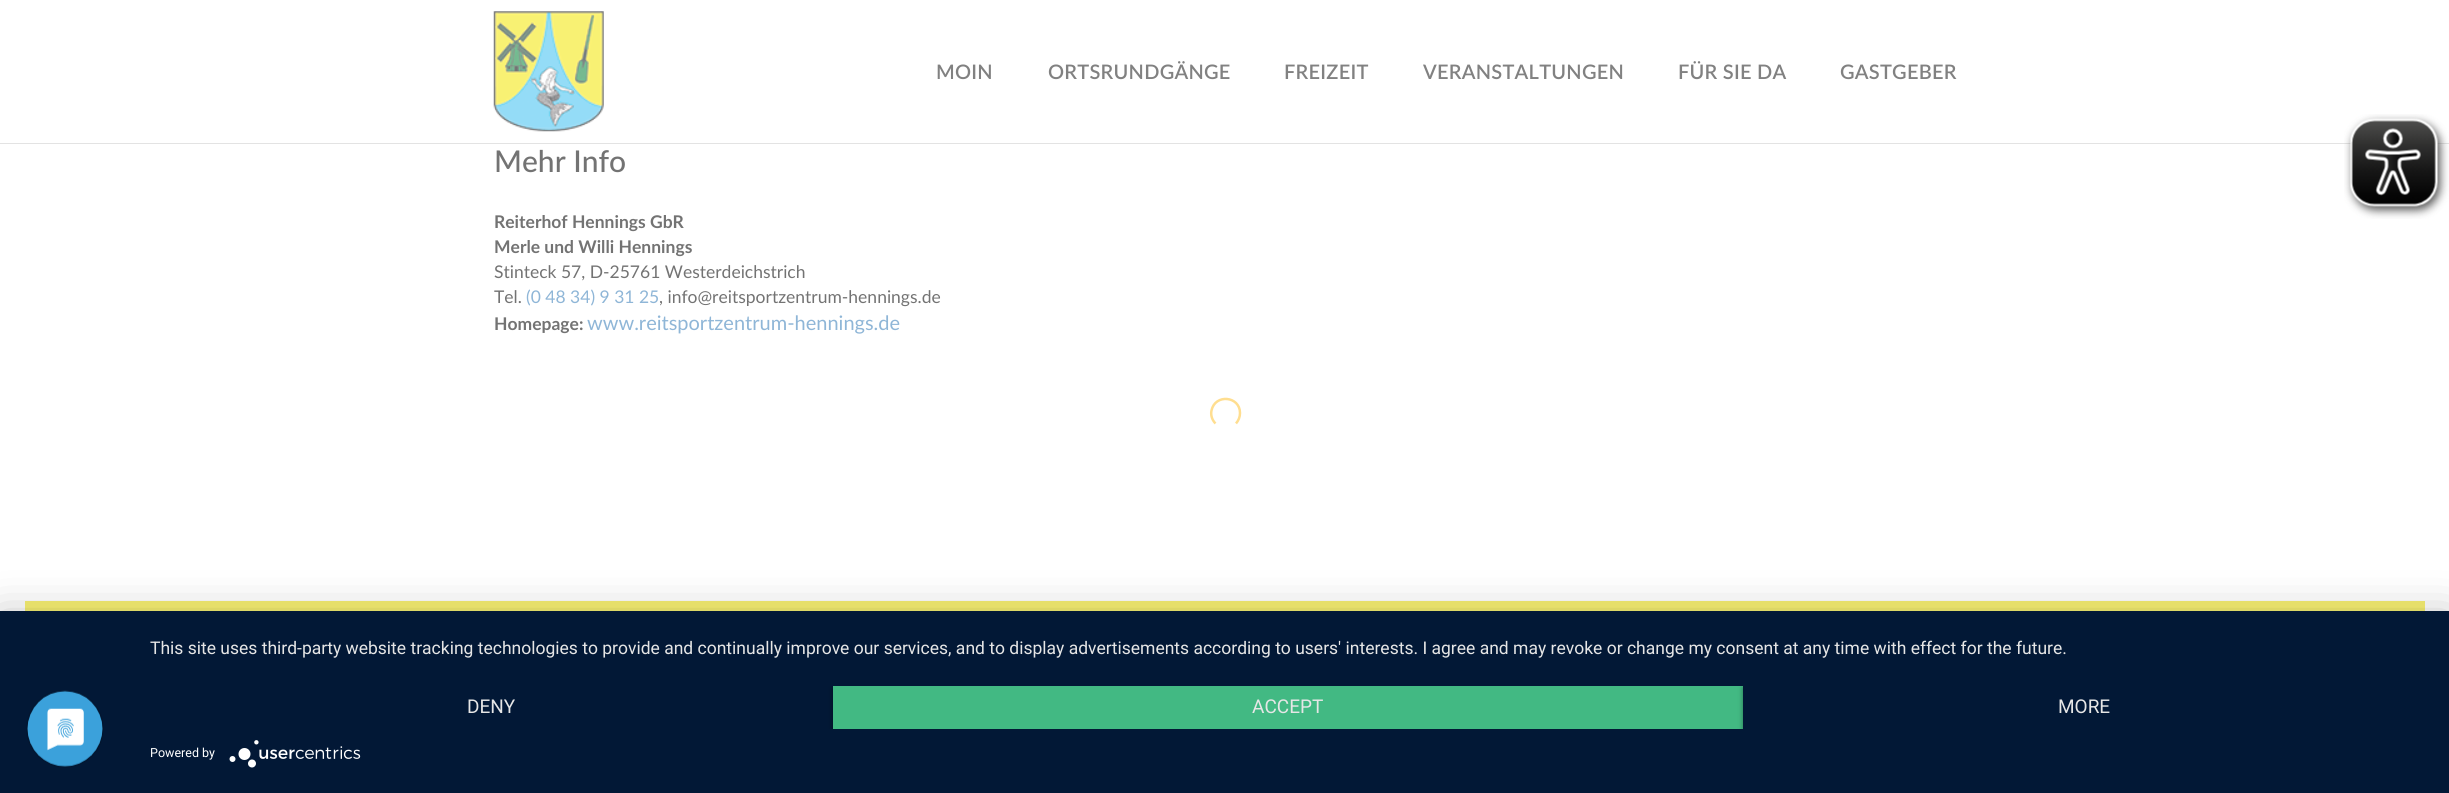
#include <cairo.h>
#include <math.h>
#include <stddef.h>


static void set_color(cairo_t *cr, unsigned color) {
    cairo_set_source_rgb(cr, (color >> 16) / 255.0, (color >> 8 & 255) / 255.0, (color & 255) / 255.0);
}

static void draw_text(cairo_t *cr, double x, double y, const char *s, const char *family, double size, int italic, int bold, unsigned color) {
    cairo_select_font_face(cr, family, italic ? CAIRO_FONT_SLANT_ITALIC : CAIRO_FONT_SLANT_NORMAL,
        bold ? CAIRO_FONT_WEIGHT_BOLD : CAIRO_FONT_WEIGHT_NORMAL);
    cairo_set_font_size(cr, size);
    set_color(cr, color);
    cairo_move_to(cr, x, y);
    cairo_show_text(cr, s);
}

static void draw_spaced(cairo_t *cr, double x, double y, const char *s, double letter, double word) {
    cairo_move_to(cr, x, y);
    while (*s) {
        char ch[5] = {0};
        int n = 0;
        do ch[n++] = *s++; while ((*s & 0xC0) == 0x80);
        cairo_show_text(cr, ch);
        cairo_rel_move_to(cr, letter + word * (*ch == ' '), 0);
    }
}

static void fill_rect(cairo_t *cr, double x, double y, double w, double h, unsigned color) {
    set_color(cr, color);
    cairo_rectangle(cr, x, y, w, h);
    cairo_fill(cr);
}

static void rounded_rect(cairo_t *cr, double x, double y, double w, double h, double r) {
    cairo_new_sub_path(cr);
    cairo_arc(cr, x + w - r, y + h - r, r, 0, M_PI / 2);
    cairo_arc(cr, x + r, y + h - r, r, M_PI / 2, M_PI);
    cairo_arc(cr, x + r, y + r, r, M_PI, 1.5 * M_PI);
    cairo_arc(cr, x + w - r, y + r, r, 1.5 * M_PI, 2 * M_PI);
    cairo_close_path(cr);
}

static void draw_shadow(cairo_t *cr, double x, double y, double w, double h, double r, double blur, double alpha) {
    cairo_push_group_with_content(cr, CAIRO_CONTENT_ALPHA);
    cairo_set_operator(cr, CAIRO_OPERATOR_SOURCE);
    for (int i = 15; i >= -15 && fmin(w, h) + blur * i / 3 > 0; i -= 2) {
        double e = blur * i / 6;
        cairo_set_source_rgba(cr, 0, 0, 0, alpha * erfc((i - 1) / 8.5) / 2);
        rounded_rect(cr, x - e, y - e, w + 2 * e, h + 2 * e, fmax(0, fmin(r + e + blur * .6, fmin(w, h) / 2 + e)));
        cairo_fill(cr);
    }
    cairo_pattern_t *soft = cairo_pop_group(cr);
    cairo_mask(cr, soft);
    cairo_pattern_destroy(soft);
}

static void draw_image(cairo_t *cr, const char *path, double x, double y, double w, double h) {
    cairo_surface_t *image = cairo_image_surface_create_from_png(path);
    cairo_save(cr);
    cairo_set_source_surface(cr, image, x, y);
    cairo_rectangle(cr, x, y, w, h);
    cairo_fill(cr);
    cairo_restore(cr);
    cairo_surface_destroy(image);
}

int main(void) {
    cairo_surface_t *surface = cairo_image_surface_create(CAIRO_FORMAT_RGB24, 2449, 793);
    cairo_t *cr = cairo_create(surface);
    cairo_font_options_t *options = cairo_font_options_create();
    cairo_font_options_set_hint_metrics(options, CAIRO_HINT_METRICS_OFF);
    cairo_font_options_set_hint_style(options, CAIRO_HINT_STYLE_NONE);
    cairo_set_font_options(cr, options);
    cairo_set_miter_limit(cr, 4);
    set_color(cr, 0xFFFFFF);
    cairo_paint(cr);
    fill_rect(cr, 0, 143, 2449, 1, 0xE3E3E3);
    draw_image(cr, "assets/img1.png", 493, 11, 111, 121);
    cairo_select_font_face(cr, "Lato SemiBold", CAIRO_FONT_SLANT_NORMAL, CAIRO_FONT_WEIGHT_NORMAL);
    cairo_set_font_size(cr, 20);
    set_color(cr, 0x818181);
    draw_spaced(cr, 936, 79, "MOIN", 0.25, 0);
    draw_spaced(cr, 1048, 79, "ORTSRUNDGÄNGE", 0.25, 0);
    draw_spaced(cr, 1284, 79, "FREIZEIT", 0.25, 0);
    draw_spaced(cr, 1423, 79, "VERANSTALTUNGEN", 0.25, 0);
    draw_spaced(cr, 1678, 79, "FÜR SIE DA", 0.25, 0);
    draw_spaced(cr, 1840, 79, "GASTGEBER", 0.25, 0);
    draw_text(cr, 494, 172, "Mehr Info", "Lato Medium", 30, 0, 0, 0x737373);
    draw_text(cr, 494, 228, "Reiterhof Hennings GbR", "Lato", 17.5, 0, 1, 0x737373);
    draw_text(cr, 494, 253, "Merle und Willi Hennings", "Lato", 17.5, 0, 1, 0x737373);
    draw_text(cr, 494, 278, "Stinteck 57, D-25761 Westerdeichstrich", "Lato", 17.5, 0, 0, 0x737373);
    draw_text(cr, 494, 303, "Tel.", "Lato", 17.5, 0, 0, 0x737373);
    draw_text(cr, 526, 303, "(0 48 34) 9 31 25", "Lato", 17.5, 0, 0, 0x8FB6D7);
    draw_text(cr, 659, 303, ", info@reitsportzentrum-hennings.de", "Lato", 17.5, 0, 0, 0x737373);
    draw_text(cr, 494, 330, "Homepage:", "Lato", 17.5, 0, 1, 0x737373);
    draw_text(cr, 587, 330, "www.reitsportzentrum-hennings.de", "Lato", 20, 0, 0, 0x8FB6D7);
    cairo_new_path(cr);
    cairo_move_to(cr, 1215.5, 423.5);
    cairo_curve_to(cr, 1212, 420, 1210.5, 415, 1211.5, 410.5);
    cairo_curve_to(cr, 1215, 393.5, 1240, 396, 1240, 413);
    cairo_curve_to(cr, 1240, 417, 1238.5, 420.5, 1236, 423.5);
    set_color(cr, 0xFFDE90);
    cairo_set_line_width(cr, 2.5);
    cairo_stroke(cr);
    fill_rect(cr, 25, 601, 2400, 10, 0xF8F173);
    draw_image(cr, "assets/img2.png", 2344, 114, 105, 105);
    set_color(cr, 0x000000);
    draw_shadow(cr, 0, 619, 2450, 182, 0, 22.5, 0.3);
    fill_rect(cr, 0, 611, 2449, 182, 0x021836);
    draw_image(cr, "assets/img3.png", 26, 690, 78, 78);
    draw_text(cr, 150, 654, "This site uses third-party website tracking technologies to provide and continually improve our services, and to display advertisements according to users' interests. I agree and may revoke or change my consent at any time with effect for the future.", "Roboto", 17.5, 0, 0, 0xE6E6E6);
    draw_text(cr, 467, 713, "DENY", "Roboto", 19, 0, 0, 0xE6E6E6);
    cairo_save(cr);
    cairo_rectangle(cr, 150, 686, 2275, 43);
    cairo_clip(cr);
    set_color(cr, 0x000000);
    draw_shadow(cr, 833, 688, 910, 42, 0, 2.5, 0.4);
    cairo_restore(cr);
    fill_rect(cr, 833, 686, 910, 43, 0x42B983);
    draw_text(cr, 1252, 713, "ACCEPT", "Roboto", 19, 0, 0, 0xE6E6E6);
    cairo_save(cr);
    cairo_rectangle(cr, 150, 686, 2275, 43);
    cairo_clip(cr);
    set_color(cr, 0x000000);
    draw_shadow(cr, 1743, 688, 682, 42, 0, 2.5, 0.4);
    cairo_restore(cr);
    fill_rect(cr, 1743, 686, 682, 43, 0x021836);
    draw_text(cr, 2058, 713, "MORE", "Roboto", 19, 0, 0, 0xE6E6E6);
    draw_text(cr, 150, 757, "Powered by", "Roboto", 12.5, 0, 0, 0xFFFFFF);
    draw_image(cr, "assets/img4.png", 229, 740, 132, 28);
    cairo_surface_write_to_png(surface, "output.png");
    cairo_font_options_destroy(options);
    cairo_destroy(cr);
    cairo_surface_destroy(surface);
    return 0;
}
